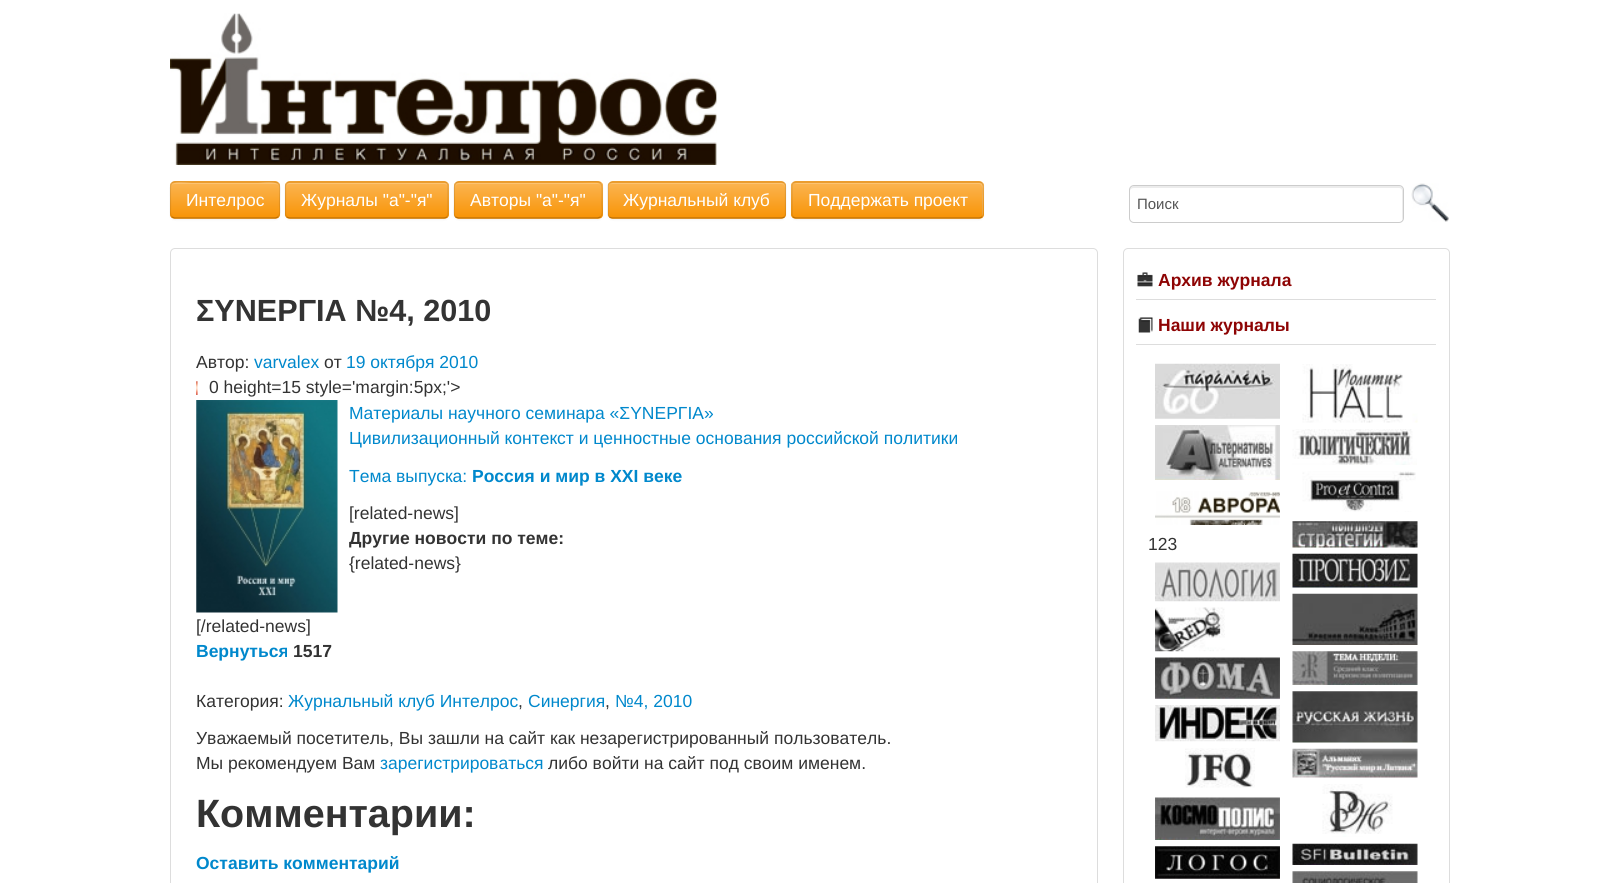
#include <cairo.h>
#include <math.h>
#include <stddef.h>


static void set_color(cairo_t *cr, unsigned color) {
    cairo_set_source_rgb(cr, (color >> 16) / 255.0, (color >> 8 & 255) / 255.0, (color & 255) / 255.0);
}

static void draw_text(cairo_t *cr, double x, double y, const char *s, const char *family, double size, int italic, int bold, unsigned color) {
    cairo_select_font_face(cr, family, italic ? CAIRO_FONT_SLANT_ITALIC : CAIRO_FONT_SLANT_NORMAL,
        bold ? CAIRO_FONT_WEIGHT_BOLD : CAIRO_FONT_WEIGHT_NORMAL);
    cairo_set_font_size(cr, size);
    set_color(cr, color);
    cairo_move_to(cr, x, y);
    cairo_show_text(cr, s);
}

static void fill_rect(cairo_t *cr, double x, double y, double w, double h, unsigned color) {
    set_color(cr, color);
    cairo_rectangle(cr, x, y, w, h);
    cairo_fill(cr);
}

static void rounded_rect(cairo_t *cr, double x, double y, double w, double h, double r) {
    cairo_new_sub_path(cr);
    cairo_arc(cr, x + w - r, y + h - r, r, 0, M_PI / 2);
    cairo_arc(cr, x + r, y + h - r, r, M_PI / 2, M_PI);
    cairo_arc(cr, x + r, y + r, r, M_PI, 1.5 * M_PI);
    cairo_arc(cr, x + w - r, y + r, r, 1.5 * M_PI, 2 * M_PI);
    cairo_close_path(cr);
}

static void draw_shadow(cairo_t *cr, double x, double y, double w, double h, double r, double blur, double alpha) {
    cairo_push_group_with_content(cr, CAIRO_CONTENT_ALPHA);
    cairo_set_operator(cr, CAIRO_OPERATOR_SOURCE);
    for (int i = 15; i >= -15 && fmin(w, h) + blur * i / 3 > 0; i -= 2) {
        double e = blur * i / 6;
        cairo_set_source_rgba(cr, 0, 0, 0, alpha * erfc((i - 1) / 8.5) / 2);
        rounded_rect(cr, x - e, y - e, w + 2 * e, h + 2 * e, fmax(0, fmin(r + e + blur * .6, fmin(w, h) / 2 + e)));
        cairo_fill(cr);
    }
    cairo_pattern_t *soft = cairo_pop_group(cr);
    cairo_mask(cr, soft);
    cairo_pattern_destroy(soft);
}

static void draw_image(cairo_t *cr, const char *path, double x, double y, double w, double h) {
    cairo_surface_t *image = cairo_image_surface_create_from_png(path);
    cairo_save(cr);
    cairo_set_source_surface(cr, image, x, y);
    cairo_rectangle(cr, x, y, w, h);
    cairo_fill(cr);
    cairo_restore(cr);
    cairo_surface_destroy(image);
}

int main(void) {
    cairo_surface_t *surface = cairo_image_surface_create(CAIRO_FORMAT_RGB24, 1618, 883);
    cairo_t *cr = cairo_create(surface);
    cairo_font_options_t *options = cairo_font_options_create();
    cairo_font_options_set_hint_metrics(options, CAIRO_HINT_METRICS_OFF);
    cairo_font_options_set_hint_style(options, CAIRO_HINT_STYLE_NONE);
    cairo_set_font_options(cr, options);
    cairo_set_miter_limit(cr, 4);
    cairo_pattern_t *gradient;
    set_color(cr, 0xFFFFFF);
    cairo_paint(cr);
    draw_image(cr, "assets/img1.png", 170, 13, 547, 152);
    set_color(cr, 0x000000);
    draw_shadow(cr, 170, 183, 110, 37, 5, 1, 0.05);
    set_color(cr, 0xFAA732);
    rounded_rect(cr, 170, 181, 110, 38, 5);
    cairo_fill(cr);
    cairo_save(cr);
    rounded_rect(cr, 170, 181, 110, 38, 5);
    cairo_clip(cr);
    gradient = cairo_pattern_create_linear(225, 183, 225, 218);
    cairo_pattern_add_color_stop_rgba(gradient, 0, 0.984, 0.706, 0.314, 1);
    cairo_pattern_add_color_stop_rgba(gradient, 1, 0.973, 0.58, 0.024, 1);
    cairo_set_source(cr, gradient);
    cairo_pattern_destroy(gradient);
    cairo_rectangle(cr, 170, 183, 110, 35);
    cairo_fill(cr);
    cairo_restore(cr);
    cairo_set_source_rgba(cr, 1, 1, 1, 0.2);
    cairo_new_path(cr);
    cairo_move_to(cr, 175, 184);
    cairo_line_to(cr, 275, 184);
    cairo_curve_to(cr, 277, 184, 279, 185, 279, 188);
    cairo_curve_to(cr, 279, 179, 262, 183, 258, 183);
    cairo_line_to(cr, 192, 183);
    cairo_curve_to(cr, 188, 183, 171, 179, 171, 188);
    cairo_curve_to(cr, 171, 185, 173, 184, 175, 184);
    cairo_close_path(cr);
    cairo_fill(cr);
    cairo_new_path(cr);
    cairo_move_to(cr, 278, 217);
    cairo_line_to(cr, 275.5, 218);
    cairo_line_to(cr, 174.5, 218);
    cairo_line_to(cr, 172, 217);
    cairo_set_source_rgba(cr, 0, 0, 0, 0.25);
    cairo_set_line_width(cr, 1.2);
    cairo_stroke(cr);
    cairo_new_path(cr);
    cairo_move_to(cr, 172, 217);
    cairo_curve_to(cr, 170, 215, 170.5, 211.5, 170.5, 209);
    cairo_line_to(cr, 170.5, 200);
    cairo_curve_to(cr, 170.5, 178, 168, 182, 191.5, 182);
    cairo_line_to(cr, 258.5, 182);
    cairo_curve_to(cr, 284, 182, 279.5, 179, 279.5, 204.5);
    cairo_curve_to(cr, 279.5, 207.5, 281, 214, 278, 217);
    cairo_set_source_rgba(cr, 0, 0, 0, 0.1);
    cairo_stroke(cr);
    draw_text(cr, 186, 206, "Интелрос", "Liberation Sans", 17.5, 0, 0, 0xFFFFFF);
    set_color(cr, 0x000000);
    draw_shadow(cr, 285, 183, 164, 37, 5, 1, 0.05);
    set_color(cr, 0xFAA732);
    rounded_rect(cr, 285, 181, 164, 38, 5);
    cairo_fill(cr);
    cairo_save(cr);
    rounded_rect(cr, 285, 181, 164, 38, 5);
    cairo_clip(cr);
    gradient = cairo_pattern_create_linear(367, 183, 367, 218);
    cairo_pattern_add_color_stop_rgba(gradient, 0, 0.984, 0.706, 0.314, 1);
    cairo_pattern_add_color_stop_rgba(gradient, 1, 0.973, 0.58, 0.024, 1);
    cairo_set_source(cr, gradient);
    cairo_pattern_destroy(gradient);
    cairo_rectangle(cr, 285, 183, 164, 35);
    cairo_fill(cr);
    cairo_restore(cr);
    set_color(cr, 0xFCC372);
    cairo_new_path(cr);
    cairo_move_to(cr, 290, 184);
    cairo_line_to(cr, 444, 184);
    cairo_curve_to(cr, 446, 184, 448, 185, 448, 188);
    cairo_curve_to(cr, 448, 186, 447, 184, 445, 183);
    cairo_line_to(cr, 289, 183);
    cairo_curve_to(cr, 287, 184, 286, 186, 286, 188);
    cairo_curve_to(cr, 286, 185, 288, 184, 290, 184);
    cairo_close_path(cr);
    cairo_fill(cr);
    cairo_new_path(cr);
    cairo_move_to(cr, 447, 217);
    cairo_curve_to(cr, 446, 217.5, 445, 218, 444, 218);
    cairo_line_to(cr, 290, 218);
    cairo_curve_to(cr, 289, 218, 287.5, 217.5, 287, 217);
    cairo_set_source_rgba(cr, 0, 0, 0, 0.25);
    cairo_stroke(cr);
    cairo_new_path(cr);
    cairo_move_to(cr, 287, 217);
    cairo_curve_to(cr, 286, 216, 285.5, 215, 285.5, 214);
    cairo_line_to(cr, 285.5, 186);
    cairo_curve_to(cr, 285.5, 185, 286, 184, 287, 183);
    cairo_curve_to(cr, 287.5, 182.5, 289, 182, 290, 182);
    cairo_line_to(cr, 444, 182);
    cairo_curve_to(cr, 445, 182, 446, 182.5, 447, 183);
    cairo_curve_to(cr, 447.5, 184, 448, 185, 448, 186);
    cairo_line_to(cr, 448, 214);
    cairo_curve_to(cr, 448, 215, 447.5, 216, 447, 217);
    cairo_set_source_rgba(cr, 0, 0, 0, 0.1);
    cairo_stroke(cr);
    draw_text(cr, 301, 206, "Журналы \"а\"-\"я\"", "Liberation Sans", 17.5, 0, 0, 0xFFFFFF);
    set_color(cr, 0x000000);
    draw_shadow(cr, 454, 183, 149, 37, 5, 1, 0.05);
    set_color(cr, 0xFAA732);
    rounded_rect(cr, 454, 181, 149, 38, 5);
    cairo_fill(cr);
    cairo_save(cr);
    rounded_rect(cr, 454, 181, 149, 38, 5);
    cairo_clip(cr);
    gradient = cairo_pattern_create_linear(528, 183, 528, 218);
    cairo_pattern_add_color_stop_rgba(gradient, 0, 0.984, 0.706, 0.314, 1);
    cairo_pattern_add_color_stop_rgba(gradient, 1, 0.973, 0.58, 0.024, 1);
    cairo_set_source(cr, gradient);
    cairo_pattern_destroy(gradient);
    cairo_rectangle(cr, 454, 183, 149, 35);
    cairo_fill(cr);
    cairo_restore(cr);
    set_color(cr, 0xFCC372);
    cairo_new_path(cr);
    cairo_move_to(cr, 459, 184);
    cairo_line_to(cr, 598, 184);
    cairo_curve_to(cr, 600, 184, 601, 185, 601, 188);
    cairo_line_to(cr, 601, 187);
    cairo_curve_to(cr, 601, 185, 599, 183, 597, 183);
    cairo_line_to(cr, 459, 183);
    cairo_curve_to(cr, 457, 183, 455, 185, 455, 187);
    cairo_line_to(cr, 455, 188);
    cairo_curve_to(cr, 455, 185, 457, 184, 459, 184);
    cairo_close_path(cr);
    cairo_fill(cr);
    cairo_new_path(cr);
    cairo_move_to(cr, 600.5, 217);
    cairo_line_to(cr, 597.5, 218);
    cairo_line_to(cr, 458.5, 218);
    cairo_line_to(cr, 455.5, 217);
    cairo_set_source_rgba(cr, 0, 0, 0, 0.25);
    cairo_stroke(cr);
    cairo_new_path(cr);
    cairo_move_to(cr, 455.5, 217);
    cairo_curve_to(cr, 453, 214, 454.5, 207.5, 454.5, 204.5);
    cairo_curve_to(cr, 454.5, 176.5, 450, 182, 482, 182);
    cairo_line_to(cr, 574.5, 182);
    cairo_curve_to(cr, 606, 182, 602, 176.5, 602, 204.5);
    cairo_curve_to(cr, 602, 207.5, 603.5, 214, 600.5, 217);
    cairo_set_source_rgba(cr, 0, 0, 0, 0.1);
    cairo_stroke(cr);
    draw_text(cr, 470, 206, "Авторы \"а\"-\"я\"", "Liberation Sans", 17.5, 0, 0, 0xFFFFFF);
    set_color(cr, 0x000000);
    draw_shadow(cr, 608, 183, 178, 37, 5, 1, 0.05);
    set_color(cr, 0xFAA732);
    rounded_rect(cr, 608, 181, 178, 38, 5);
    cairo_fill(cr);
    cairo_save(cr);
    rounded_rect(cr, 608, 181, 178, 38, 5);
    cairo_clip(cr);
    gradient = cairo_pattern_create_linear(697, 183, 697, 218);
    cairo_pattern_add_color_stop_rgba(gradient, 0, 0.984, 0.706, 0.314, 1);
    cairo_pattern_add_color_stop_rgba(gradient, 1, 0.973, 0.58, 0.024, 1);
    cairo_set_source(cr, gradient);
    cairo_pattern_destroy(gradient);
    cairo_rectangle(cr, 608, 183, 178, 35);
    cairo_fill(cr);
    cairo_restore(cr);
    set_color(cr, 0xFCC372);
    cairo_new_path(cr);
    cairo_move_to(cr, 612, 184);
    cairo_line_to(cr, 781, 184);
    cairo_curve_to(cr, 783, 184, 785, 185, 785, 188);
    cairo_line_to(cr, 785, 187);
    cairo_curve_to(cr, 785, 185, 783, 183, 781, 183);
    cairo_line_to(cr, 613, 183);
    cairo_curve_to(cr, 611, 183, 609, 185, 609, 187);
    cairo_line_to(cr, 609, 188);
    cairo_curve_to(cr, 609, 185, 610, 184, 612, 184);
    cairo_close_path(cr);
    cairo_fill(cr);
    cairo_new_path(cr);
    cairo_move_to(cr, 784.5, 217);
    cairo_curve_to(cr, 783.5, 217.5, 782.5, 218, 781, 218);
    cairo_line_to(cr, 612.5, 218);
    cairo_curve_to(cr, 611.5, 218, 610, 217.5, 609.5, 217);
    cairo_set_source_rgba(cr, 0, 0, 0, 0.25);
    cairo_stroke(cr);
    cairo_new_path(cr);
    cairo_move_to(cr, 609.5, 217);
    cairo_curve_to(cr, 608.5, 216, 608, 215, 608, 214);
    cairo_line_to(cr, 608, 186);
    cairo_curve_to(cr, 608, 185, 608.5, 184, 609.5, 183);
    cairo_curve_to(cr, 610, 182.5, 611.5, 182, 612.5, 182);
    cairo_line_to(cr, 781, 182);
    cairo_curve_to(cr, 782.5, 182, 783.5, 182.5, 784.5, 183);
    cairo_curve_to(cr, 785, 184, 785.5, 185, 785.5, 186);
    cairo_line_to(cr, 785.5, 214);
    cairo_curve_to(cr, 785.5, 215, 785, 216, 784.5, 217);
    cairo_set_source_rgba(cr, 0, 0, 0, 0.1);
    cairo_stroke(cr);
    draw_text(cr, 623, 206, "Журнальный клуб", "Liberation Sans", 17.5, 0, 0, 0xFFFFFF);
    set_color(cr, 0x000000);
    draw_shadow(cr, 791, 183, 193, 37, 5, 1, 0.05);
    set_color(cr, 0xFAA732);
    rounded_rect(cr, 791, 181, 193, 38, 5);
    cairo_fill(cr);
    cairo_save(cr);
    rounded_rect(cr, 791, 181, 193, 38, 5);
    cairo_clip(cr);
    gradient = cairo_pattern_create_linear(888, 183, 888, 218);
    cairo_pattern_add_color_stop_rgba(gradient, 0, 0.984, 0.706, 0.314, 1);
    cairo_pattern_add_color_stop_rgba(gradient, 1, 0.973, 0.58, 0.024, 1);
    cairo_set_source(cr, gradient);
    cairo_pattern_destroy(gradient);
    cairo_rectangle(cr, 791, 183, 193, 35);
    cairo_fill(cr);
    cairo_restore(cr);
    cairo_set_source_rgba(cr, 1, 1, 1, 0.2);
    cairo_new_path(cr);
    cairo_move_to(cr, 796, 184);
    cairo_line_to(cr, 979, 184);
    cairo_curve_to(cr, 984, 184, 982, 194, 982, 197);
    cairo_line_to(cr, 982, 217);
    cairo_curve_to(cr, 982, 216, 983, 215, 983, 214);
    cairo_line_to(cr, 983, 187);
    cairo_curve_to(cr, 983, 185, 981, 183, 979, 183);
    cairo_line_to(cr, 797, 183);
    cairo_curve_to(cr, 796, 183, 795, 184, 794, 184);
    cairo_close_path(cr);
    cairo_fill(cr);
    cairo_new_path(cr);
    cairo_move_to(cr, 982, 217);
    cairo_curve_to(cr, 981, 217.5, 980, 218, 979, 218);
    cairo_line_to(cr, 796, 218);
    cairo_curve_to(cr, 795, 218, 794, 217.5, 793, 217);
    cairo_set_source_rgba(cr, 0, 0, 0, 0.25);
    cairo_stroke(cr);
    cairo_new_path(cr);
    cairo_move_to(cr, 793, 217);
    cairo_curve_to(cr, 792.5, 216, 792, 215, 792, 214);
    cairo_line_to(cr, 792, 186);
    cairo_curve_to(cr, 792, 185, 792.5, 184, 793, 183);
    cairo_curve_to(cr, 794, 182.5, 795, 182, 796, 182);
    cairo_line_to(cr, 979, 182);
    cairo_curve_to(cr, 980, 182, 981, 182.5, 982, 183);
    cairo_curve_to(cr, 982.5, 184, 983, 185, 983, 186);
    cairo_line_to(cr, 983, 214);
    cairo_curve_to(cr, 983, 215, 982.5, 216, 982, 217);
    cairo_set_source_rgba(cr, 0, 0, 0, 0.1);
    cairo_stroke(cr);
    draw_text(cr, 808, 206, "Поддержать проект", "Liberation Sans", 17.5, 0, 0, 0xFFFFFF);
    set_color(cr, 0xECECEC);
    cairo_new_path(cr);
    cairo_move_to(cr, 1134, 188);
    cairo_line_to(cr, 1399, 188);
    cairo_curve_to(cr, 1401, 188, 1402, 189, 1402, 191);
    cairo_line_to(cr, 1402, 220);
    cairo_curve_to(cr, 1403, 219, 1403, 218, 1403, 217);
    cairo_line_to(cr, 1403, 190);
    cairo_curve_to(cr, 1403, 188, 1401, 186, 1399, 186);
    cairo_line_to(cr, 1134, 186);
    cairo_curve_to(cr, 1132, 186, 1130, 188, 1130, 190);
    cairo_line_to(cr, 1130, 191);
    cairo_curve_to(cr, 1130, 189, 1132, 188, 1134, 188);
    cairo_close_path(cr);
    cairo_fill(cr);
    rounded_rect(cr, 1129.5, 185.5, 274, 37, 4.5);
    set_color(cr, 0xCCCCCC);
    cairo_set_line_width(cr, 1);
    cairo_stroke(cr);
    draw_text(cr, 1137, 209, "Поиск", "Liberation Sans", 15, 0, 0, 0x555555);
    draw_image(cr, "assets/img2.png", 1411, 183, 38, 39);
    rounded_rect(cr, 170.5, 248.5, 927, 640, 4.5);
    set_color(cr, 0xDDDDDD);
    cairo_stroke(cr);
    draw_text(cr, 196, 321, "ΣΥΝΕΡΓΙΑ №4, 2010", "Liberation Sans", 30.6, 0, 1, 0x333333);
    draw_text(cr, 196, 368, "Автор:", "Liberation Sans", 17.5, 0, 0, 0x333333);
    draw_text(cr, 254, 368, "varvalex", "Liberation Sans", 17.5, 0, 0, 0x0088CC);
    draw_text(cr, 324, 368, "от", "Liberation Sans", 17.5, 0, 0, 0x333333);
    draw_text(cr, 346, 368, "19 октября 2010", "Liberation Sans", 17.5, 0, 0, 0x0088CC);
    draw_image(cr, "assets/img3.png", 196, 381, 2, 14);
    draw_text(cr, 209, 393, "0 height=15 style='margin:5px;'>", "Liberation Sans", 17.5, 0, 0, 0x333333);
    draw_image(cr, "assets/img4.png", 196, 400, 142, 213);
    draw_text(cr, 349, 419, "Материалы научного семинара «ΣΥΝΕΡΓΙΑ»", "Liberation Sans", 17.5, 0, 0, 0x0088CC);
    draw_text(cr, 349, 444, "Цивилизационный контекст и ценностные основания российской политики", "Liberation Sans", 17.5, 0, 0, 0x0088CC);
    draw_text(cr, 349, 482, "Тема выпуска:", "Liberation Sans", 17.5, 0, 0, 0x0088CC);
    draw_text(cr, 472, 482, "Россия и мир в XXI веке", "Liberation Sans", 17.5, 0, 1, 0x0088CC);
    draw_text(cr, 349, 519, "[related-news]", "Liberation Sans", 17.5, 0, 0, 0x333333);
    draw_text(cr, 349, 544, "Другие новости по теме:", "Liberation Sans", 17.5, 0, 1, 0x333333);
    draw_text(cr, 349, 569, "{related-news}", "Liberation Sans", 17.5, 0, 0, 0x333333);
    draw_text(cr, 196, 632, "[/related-news]", "Liberation Sans", 17.5, 0, 0, 0x333333);
    draw_text(cr, 196, 657, "Вернуться", "Liberation Sans", 17.5, 0, 1, 0x0088CC);
    draw_text(cr, 293, 657, "1517", "Liberation Sans", 17.5, 0, 1, 0x333333);
    draw_text(cr, 196, 707, "Категория:", "Liberation Sans", 17.5, 0, 0, 0x333333);
    draw_text(cr, 288, 707, "Журнальный клуб Интелрос", "Liberation Sans", 17.5, 0, 0, 0x0088CC);
    draw_text(cr, 518, 707, ",", "Liberation Sans", 17.5, 0, 0, 0x333333);
    draw_text(cr, 528, 707, "Синергия", "Liberation Sans", 17.5, 0, 0, 0x0088CC);
    draw_text(cr, 605, 707, ",", "Liberation Sans", 17.5, 0, 0, 0x333333);
    draw_text(cr, 615, 707, "№4, 2010", "Liberation Sans", 17.5, 0, 0, 0x0088CC);
    draw_text(cr, 196, 744, "Уважаемый посетитель, Вы зашли на сайт как незарегистрированный пользователь.", "Liberation Sans", 17.5, 0, 0, 0x333333);
    draw_text(cr, 196, 769, "Мы рекомендуем Вам", "Liberation Sans", 17.5, 0, 0, 0x333333);
    draw_text(cr, 380, 769, "зарегистрироваться", "Liberation Sans", 17.5, 0, 0, 0x0088CC);
    draw_text(cr, 548, 769, "либо войти на сайт под своим именем.", "Liberation Sans", 17.5, 0, 0, 0x333333);
    draw_text(cr, 196, 827, "Комментарии:", "Liberation Sans", 39.5, 0, 1, 0x333333);
    draw_text(cr, 196, 869, "Оставить комментарий", "Liberation Sans", 17.5, 0, 1, 0x0088CC);
    rounded_rect(cr, 1123.5, 248.5, 326, 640, 4.5);
    set_color(cr, 0xDDDDDD);
    cairo_stroke(cr);
    fill_rect(cr, 1136, 299, 300, 1, 0xDDDDDD);
    draw_image(cr, "assets/img5.png", 1137, 272, 16, 15);
    draw_text(cr, 1158, 286, "Архив журнала", "Liberation Sans", 17.5, 0, 1, 0x8E0404);
    fill_rect(cr, 1136, 344, 300, 1, 0xDDDDDD);
    draw_image(cr, "assets/img6.png", 1138, 317, 15, 16);
    draw_text(cr, 1158, 331, "Наши журналы", "Liberation Sans", 17.5, 0, 1, 0x8E0404);
    draw_image(cr, "assets/img7.png", 1155, 363, 125, 56);
    draw_image(cr, "assets/img8.png", 1155, 425, 125, 55);
    draw_image(cr, "assets/img9.png", 1155, 491, 125, 34);
    draw_text(cr, 1148, 550, "123", "Liberation Sans", 17.5, 0, 0, 0x333333);
    draw_image(cr, "assets/img10.png", 1155, 562, 125, 40);
    draw_image(cr, "assets/img11.png", 1155, 607, 70, 45);
    draw_image(cr, "assets/img12.png", 1155, 657, 125, 42);
    draw_image(cr, "assets/img13.png", 1155, 705, 125, 37);
    draw_image(cr, "assets/img14.png", 1185, 748, 70, 40);
    draw_image(cr, "assets/img15.png", 1155, 797, 125, 43);
    draw_image(cr, "assets/img16.png", 1155, 846, 125, 33);
    draw_image(cr, "assets/img17.png", 1302, 364, 116, 59);
    draw_image(cr, "assets/img18.png", 1292, 429, 125, 36);
    draw_image(cr, "assets/img19.png", 1302, 471, 114, 41);
    draw_image(cr, "assets/img20.png", 1292, 521, 126, 27);
    draw_image(cr, "assets/img21.png", 1292, 553, 126, 35);
    draw_image(cr, "assets/img22.png", 1292, 593, 126, 52);
    draw_image(cr, "assets/img23.png", 1292, 651, 126, 34);
    draw_image(cr, "assets/img24.png", 1292, 691, 126, 52);
    draw_image(cr, "assets/img25.png", 1292, 748, 126, 30);
    draw_image(cr, "assets/img26.png", 1322, 784, 71, 53);
    draw_image(cr, "assets/img27.png", 1292, 843, 126, 22);
    draw_image(cr, "assets/img28.png", 1292, 871, 126, 12);
    cairo_surface_write_to_png(surface, "output.png");
    cairo_font_options_destroy(options);
    cairo_destroy(cr);
    cairo_surface_destroy(surface);
    return 0;
}
